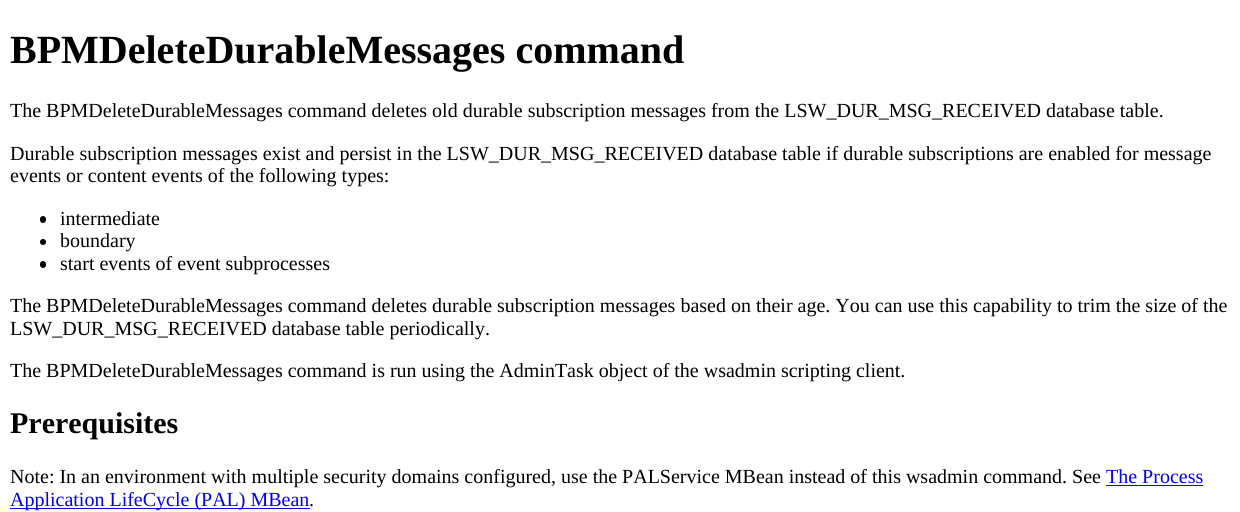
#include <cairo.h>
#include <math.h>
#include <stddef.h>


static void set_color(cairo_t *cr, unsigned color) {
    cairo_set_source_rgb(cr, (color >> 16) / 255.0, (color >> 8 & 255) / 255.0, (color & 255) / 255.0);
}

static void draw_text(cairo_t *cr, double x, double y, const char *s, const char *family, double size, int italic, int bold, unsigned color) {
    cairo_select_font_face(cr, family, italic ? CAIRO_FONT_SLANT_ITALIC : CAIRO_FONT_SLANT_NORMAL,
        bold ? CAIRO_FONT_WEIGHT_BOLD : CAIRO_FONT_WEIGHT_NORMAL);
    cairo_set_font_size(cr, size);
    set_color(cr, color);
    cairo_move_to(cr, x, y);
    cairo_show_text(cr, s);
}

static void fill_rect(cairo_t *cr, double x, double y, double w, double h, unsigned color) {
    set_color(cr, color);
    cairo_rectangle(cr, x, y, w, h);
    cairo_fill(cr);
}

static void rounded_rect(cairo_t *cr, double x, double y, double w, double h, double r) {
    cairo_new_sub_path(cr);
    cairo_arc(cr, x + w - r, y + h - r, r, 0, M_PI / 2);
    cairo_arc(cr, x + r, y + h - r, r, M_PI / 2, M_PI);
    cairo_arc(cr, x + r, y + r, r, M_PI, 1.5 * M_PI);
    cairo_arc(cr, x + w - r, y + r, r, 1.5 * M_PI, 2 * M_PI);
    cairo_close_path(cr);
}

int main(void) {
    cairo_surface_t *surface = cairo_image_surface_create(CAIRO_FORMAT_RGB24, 1240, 512);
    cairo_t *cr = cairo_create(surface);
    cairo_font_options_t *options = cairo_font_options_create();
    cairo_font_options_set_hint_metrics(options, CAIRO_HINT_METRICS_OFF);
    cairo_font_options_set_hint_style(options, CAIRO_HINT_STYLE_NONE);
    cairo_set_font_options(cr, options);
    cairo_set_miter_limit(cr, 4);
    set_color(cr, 0xFFFFFF);
    cairo_paint(cr);
    draw_text(cr, 10, 63, "BPMDeleteDurableMessages command", "Liberation Serif", 40, 0, 1, 0x000000);
    draw_text(cr, 10, 117, "The BPMDeleteDurableMessages command deletes old durable subscription messages from the LSW_DUR_MSG_RECEIVED database table.", "Liberation Serif", 20, 0, 0, 0x000000);
    draw_text(cr, 10, 160, "Durable subscription messages exist and persist in the LSW_DUR_MSG_RECEIVED database table if durable subscriptions are enabled for message", "Liberation Serif", 20, 0, 0, 0x000000);
    draw_text(cr, 10, 182, "events or content events of the following types:", "Liberation Serif", 20, 0, 0, 0x000000);
    rounded_rect(cr, 40, 216, 6, 7, 3);
    cairo_fill(cr);
    draw_text(cr, 60, 225, "intermediate", "Liberation Serif", 20, 0, 0, 0x000000);
    cairo_new_path(cr);
    cairo_arc(cr, 43, 242, 3, 0, 2 * M_PI);
    cairo_fill(cr);
    draw_text(cr, 60, 247, "boundary", "Liberation Serif", 20, 0, 0, 0x000000);
    rounded_rect(cr, 40, 261, 6, 7, 3);
    cairo_fill(cr);
    draw_text(cr, 60, 270, "start events of event subprocesses", "Liberation Serif", 20, 0, 0, 0x000000);
    draw_text(cr, 10, 312, "The BPMDeleteDurableMessages command deletes durable subscription messages based on their age. You can use this capability to trim the size of the", "Liberation Serif", 20, 0, 0, 0x000000);
    draw_text(cr, 10, 335, "LSW_DUR_MSG_RECEIVED database table periodically.", "Liberation Serif", 20, 0, 0, 0x000000);
    draw_text(cr, 10, 377, "The BPMDeleteDurableMessages command is run using the AdminTask object of the wsadmin scripting client.", "Liberation Serif", 20, 0, 0, 0x000000);
    draw_text(cr, 10, 433, "Prerequisites", "Liberation Serif", 30, 0, 1, 0x000000);
    draw_text(cr, 10, 483, "Note: In an environment with multiple security domains configured, use the PALService MBean instead of this wsadmin command. See", "Liberation Serif", 20, 0, 0, 0x000000);
    draw_text(cr, 1106, 483, "The Process", "Liberation Serif", 20, 0, 0, 0x0000EE);
    fill_rect(cr, 1106, 485, 97, 1, 0x0000EE);
    fill_rect(cr, 10, 508, 300, 1, 0x0000EE);
    draw_text(cr, 10, 506, "Application LifeCycle (PAL) MBean", "Liberation Serif", 20, 0, 0, 0x0000EE);
    draw_text(cr, 309, 506, ".", "Liberation Serif", 20, 0, 0, 0x000000);
    cairo_surface_write_to_png(surface, "output.png");
    cairo_font_options_destroy(options);
    cairo_destroy(cr);
    cairo_surface_destroy(surface);
    return 0;
}
